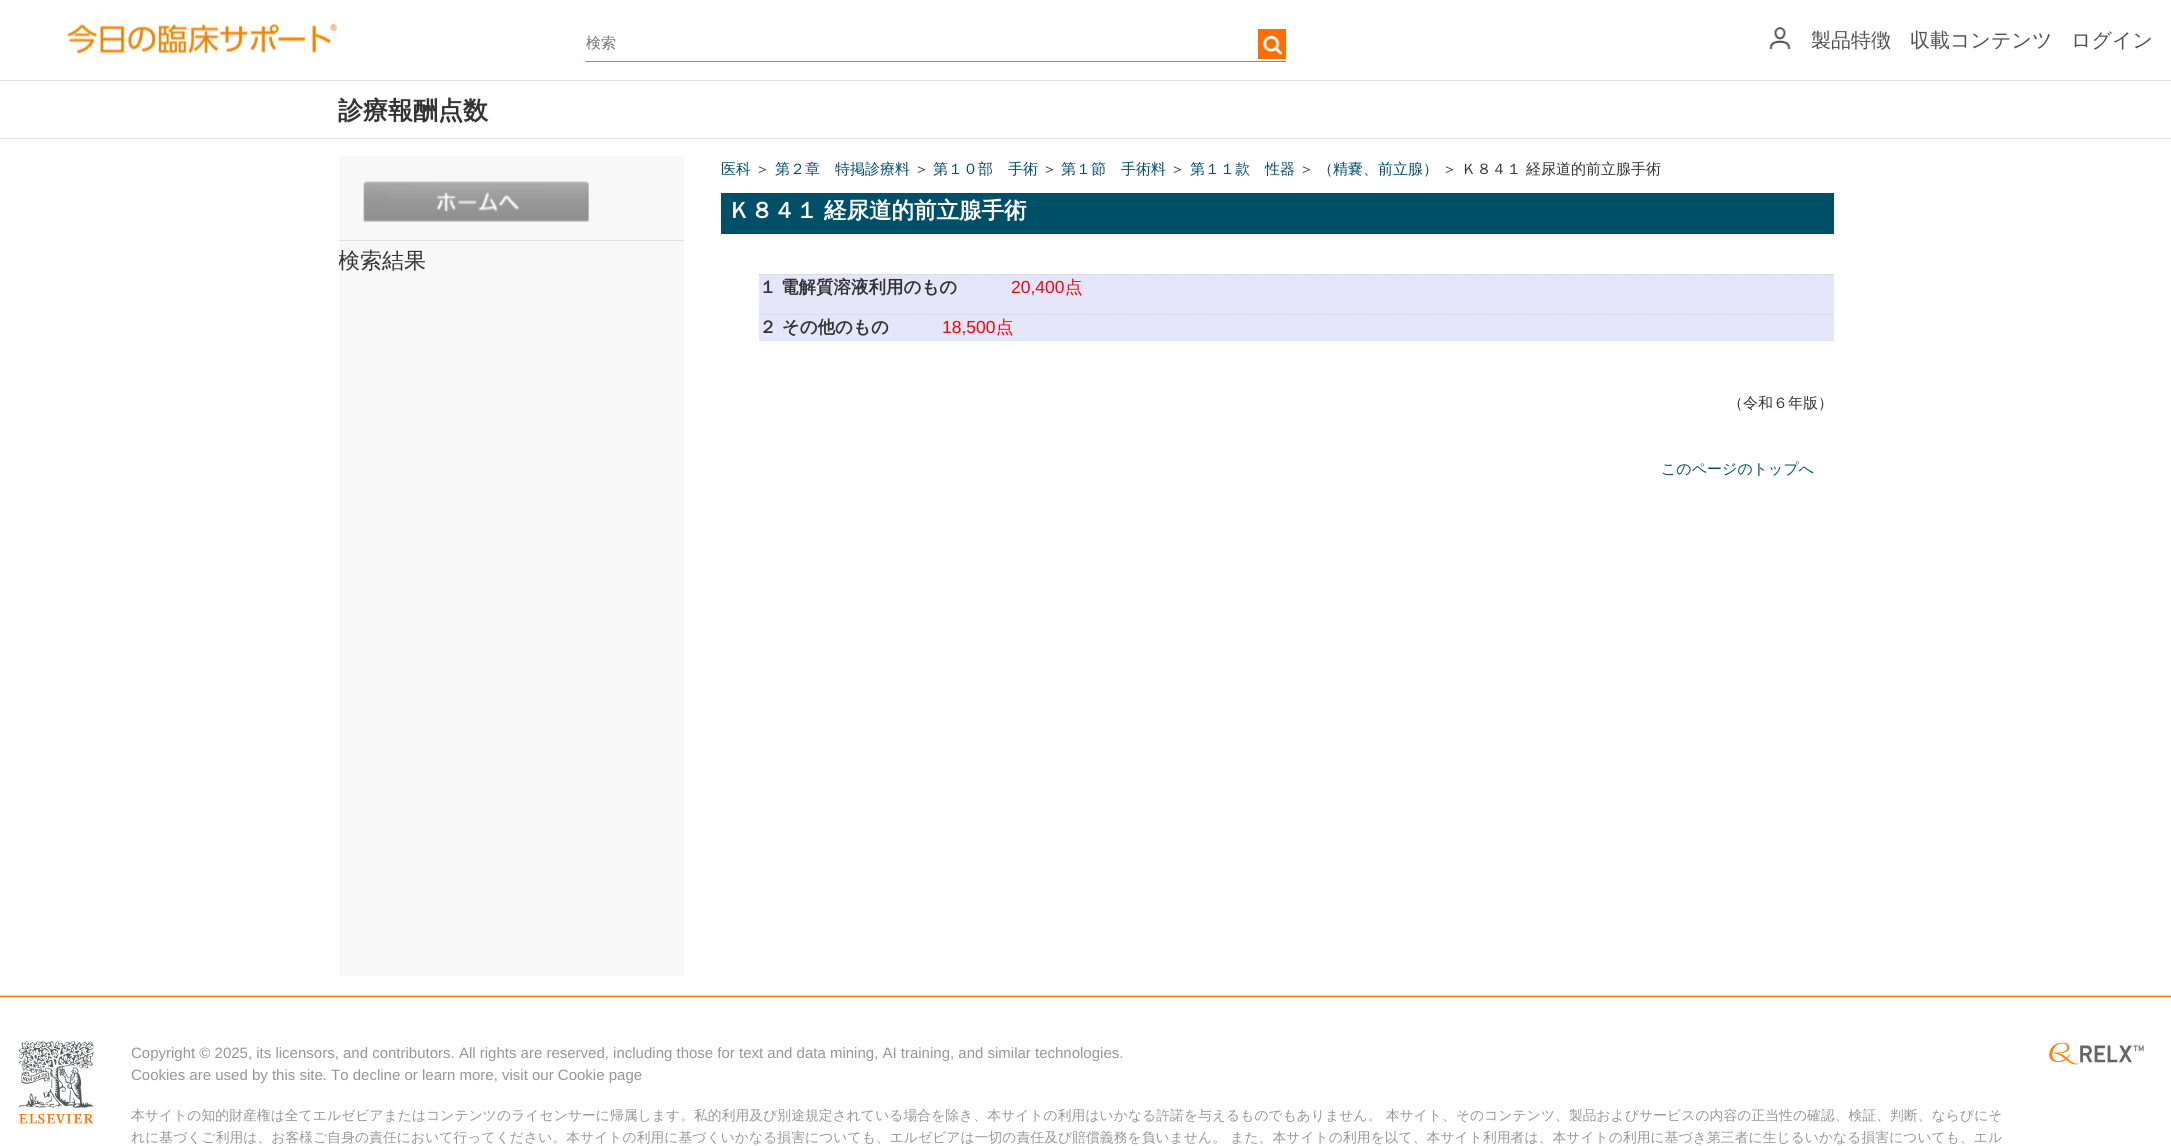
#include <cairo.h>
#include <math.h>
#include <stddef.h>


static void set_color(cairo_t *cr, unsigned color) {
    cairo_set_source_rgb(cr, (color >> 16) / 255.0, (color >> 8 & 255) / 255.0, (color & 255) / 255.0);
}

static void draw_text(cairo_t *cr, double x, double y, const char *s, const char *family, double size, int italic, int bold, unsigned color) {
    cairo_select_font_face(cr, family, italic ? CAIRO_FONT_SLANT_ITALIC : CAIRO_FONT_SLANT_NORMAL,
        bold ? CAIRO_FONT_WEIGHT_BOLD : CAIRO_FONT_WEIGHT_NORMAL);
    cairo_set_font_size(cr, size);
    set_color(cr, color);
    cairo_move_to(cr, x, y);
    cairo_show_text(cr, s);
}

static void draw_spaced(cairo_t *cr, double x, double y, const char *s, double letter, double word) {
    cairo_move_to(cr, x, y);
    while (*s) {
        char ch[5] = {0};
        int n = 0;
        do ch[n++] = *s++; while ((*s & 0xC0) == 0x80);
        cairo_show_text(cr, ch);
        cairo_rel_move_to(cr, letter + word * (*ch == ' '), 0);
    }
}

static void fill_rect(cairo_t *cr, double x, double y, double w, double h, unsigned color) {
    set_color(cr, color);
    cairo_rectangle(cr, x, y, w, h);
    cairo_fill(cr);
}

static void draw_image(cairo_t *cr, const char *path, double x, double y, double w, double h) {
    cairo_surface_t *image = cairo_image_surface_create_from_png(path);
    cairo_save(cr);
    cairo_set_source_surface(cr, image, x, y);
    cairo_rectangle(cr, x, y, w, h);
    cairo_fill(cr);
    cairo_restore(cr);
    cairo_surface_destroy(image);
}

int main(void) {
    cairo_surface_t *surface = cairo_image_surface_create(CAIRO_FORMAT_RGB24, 2171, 1146);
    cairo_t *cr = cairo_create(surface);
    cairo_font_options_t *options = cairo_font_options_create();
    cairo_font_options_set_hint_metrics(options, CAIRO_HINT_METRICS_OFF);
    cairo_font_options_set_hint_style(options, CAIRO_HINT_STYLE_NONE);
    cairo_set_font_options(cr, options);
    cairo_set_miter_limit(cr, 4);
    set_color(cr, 0xFFFFFF);
    cairo_paint(cr);
    fill_rect(cr, 0, 80, 2171, 1, 0xDFE1E5);
    draw_image(cr, "assets/img1.png", 67, 24, 270, 30);
    fill_rect(cr, 586, 61, 700, 1, 0xFF6C00);
    draw_text(cr, 586, 48, "検索", "WenQuanYi Zen Hei Medium", 15, 0, 0, 0x757575);
    fill_rect(cr, 1258, 29, 28, 30, 0xFF6C00);
    draw_image(cr, "assets/img2.png", 1262, 35, 21, 20);
    draw_image(cr, "assets/img3.png", 1769, 27, 22, 22);
    draw_text(cr, 1811, 47, "製品特徴", "WenQuanYi Zen Hei Medium", 20, 0, 0, 0x505050);
    draw_text(cr, 1910, 47, "収載コンテンツ", "WenQuanYi Zen Hei Medium", 20, 0, 0, 0x505050);
    draw_text(cr, 2071, 47, "ログイン", "WenQuanYi Zen Hei Medium", 20, 0, 0, 0x505050);
    fill_rect(cr, 0, 138, 2171, 1, 0xDFE1E5);
    draw_text(cr, 338, 119, "診療報酬点数", "WenQuanYi Zen Hei", 25, 0, 1, 0x333333);
    fill_rect(cr, 339, 156, 345, 820, 0xF8F8F8);
    fill_rect(cr, 339, 240, 345, 1, 0xDFE1E5);
    draw_image(cr, "assets/img4.png", 363, 181, 226, 41);
    cairo_save(cr);
    cairo_rectangle(cr, 339, 156, 345, 820);
    cairo_clip(cr);
    draw_text(cr, 338, 268, "検索結果", "WenQuanYi Zen Hei Medium", 22, 0, 0, 0x333333);
    cairo_restore(cr);
    draw_text(cr, 721, 174, "医科", "WenQuanYi Zen Hei Medium", 15, 0, 0, 0x004F69);
    draw_text(cr, 755, 174, "＞", "WenQuanYi Zen Hei Medium", 15, 0, 0, 0x333333);
    draw_text(cr, 775, 174, "第２章　特掲診療料", "WenQuanYi Zen Hei Medium", 15, 0, 0, 0x004F69);
    draw_text(cr, 914, 174, "＞", "WenQuanYi Zen Hei Medium", 15, 0, 0, 0x333333);
    draw_text(cr, 933, 174, "第１０部　手術", "WenQuanYi Zen Hei Medium", 15, 0, 0, 0x004F69);
    draw_text(cr, 1042, 174, "＞", "WenQuanYi Zen Hei Medium", 15, 0, 0, 0x333333);
    draw_text(cr, 1061, 174, "第１節　手術料", "WenQuanYi Zen Hei Medium", 15, 0, 0, 0x004F69);
    draw_text(cr, 1170, 174, "＞", "WenQuanYi Zen Hei Medium", 15, 0, 0, 0x333333);
    draw_text(cr, 1190, 174, "第１１款　性器", "WenQuanYi Zen Hei Medium", 15, 0, 0, 0x004F69);
    draw_text(cr, 1299, 174, "＞", "WenQuanYi Zen Hei Medium", 15, 0, 0, 0x333333);
    draw_text(cr, 1318, 174, "（精嚢、前立腺）", "WenQuanYi Zen Hei Medium", 15, 0, 0, 0x004F69);
    draw_text(cr, 1442, 174, "＞ Ｋ８４１ 経尿道的前立腺手術", "WenQuanYi Zen Hei Medium", 15, 0, 0, 0x333333);
    fill_rect(cr, 721, 193, 1113, 41, 0x004F69);
    draw_text(cr, 728, 218, "Ｋ８４１", "WenQuanYi Zen Hei", 22.5, 0, 1, 0xFFFFFF);
    draw_text(cr, 824, 218, "経尿道的前立腺手術", "WenQuanYi Zen Hei", 22.5, 0, 1, 0xFFFFFF);
    fill_rect(cr, 759, 274, 1075, 67, 0xE6E6FA);
    cairo_new_path(cr);
    cairo_move_to(cr, 759, 274.5);
    cairo_line_to(cr, 1834, 274.5);
    set_color(cr, 0xD3D3D3);
    cairo_set_line_width(cr, 1.2);
    cairo_set_dash(cr, (double[]){1.25, 1.25}, 2, 0);
    cairo_stroke(cr);
    draw_text(cr, 759, 293, "１", "WenQuanYi Zen Hei", 17.5, 0, 1, 0x333333);
    draw_text(cr, 781, 293, "電解質溶液利用のもの", "WenQuanYi Zen Hei", 17.5, 0, 1, 0x333333);
    draw_text(cr, 1011, 293, "20,400", "Liberation Sans", 17.5, 0, 0, 0xFF0000);
    draw_text(cr, 1065, 293, "点", "WenQuanYi Zen Hei Medium", 17.5, 0, 0, 0xFF0000);
    cairo_new_path(cr);
    cairo_move_to(cr, 759, 314.5);
    cairo_line_to(cr, 1834, 314.5);
    set_color(cr, 0xD3D3D3);
    cairo_stroke(cr);
    draw_text(cr, 759, 333, "２ その他のもの", "WenQuanYi Zen Hei", 17.5, 0, 1, 0x333333);
    draw_text(cr, 942, 333, "18,500", "Liberation Sans", 17.5, 0, 0, 0xFF0000);
    draw_text(cr, 996, 333, "点", "WenQuanYi Zen Hei Medium", 17.5, 0, 0, 0xFF0000);
    draw_text(cr, 1728, 408, "（令和６年版）", "WenQuanYi Zen Hei Medium", 15, 0, 0, 0x333333);
    draw_text(cr, 1661, 474, "このページのトップへ", "WenQuanYi Zen Hei Medium", 15, 0, 0, 0x004F69);
    fill_rect(cr, 0, 995, 2171, 1, 0xDFE1E5);
    fill_rect(cr, 0, 996, 2171, 1, 0xFF6C00);
    draw_image(cr, "assets/img5.png", 18, 1041, 76, 83);
    draw_text(cr, 131, 1058, "Copyright © 2025, its licensors, and contributors. All rights are reserved, including those for text and data mining, AI training, and similar technologies.", "Liberation Sans", 15, 0, 0, 0x969696);
    draw_text(cr, 131, 1080, "Cookies are used by this site. To decline or learn more, visit our Cookie page", "Liberation Sans", 15, 0, 0, 0x969696);
    cairo_select_font_face(cr, "WenQuanYi Zen Hei Medium", CAIRO_FONT_SLANT_NORMAL, CAIRO_FONT_WEIGHT_NORMAL);
    cairo_set_font_size(cr, 13.75);
    draw_spaced(cr, 131, 1120, "本サイトの知的財産権は全てエルゼビアまたはコンテンツのライセンサーに帰属します。私的利用及び別途規定されている場合を除き、本サイトの利用はいかなる許諾を与えるものでもありません。 本サイト、そのコンテンツ、製品およびサービスの内容の正当性の確認、検証、判断、ならびにそ", 0.09, 0);
    draw_spaced(cr, 131, 1142, "れに基づくご利用は、お客様ご自身の責任において行ってください。本サイトの利用に基づくいかなる損害についても、エルゼビアは一切の責任及び賠償義務を負いません。 また、本サイトの利用を以て、本サイト利用者は、本サイトの利用に基づき第三者に生じるいかなる損害についても、エル", 0.09, 0);
    draw_image(cr, "assets/img6.png", 2049, 1042, 95, 23);
    cairo_surface_write_to_png(surface, "output.png");
    cairo_font_options_destroy(options);
    cairo_destroy(cr);
    cairo_surface_destroy(surface);
    return 0;
}
